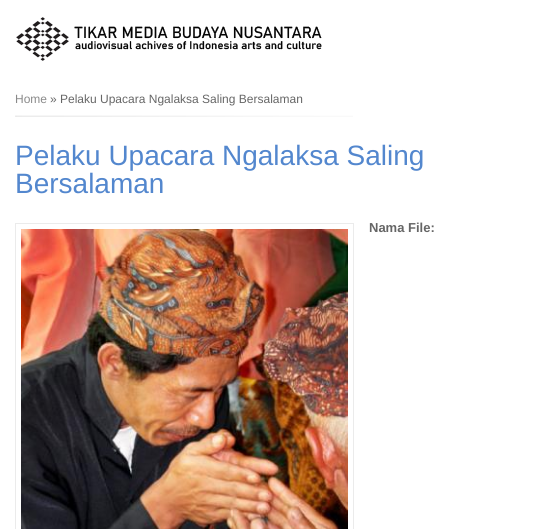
#include <cairo.h>
#include <math.h>
#include <stddef.h>


static void set_color(cairo_t *cr, unsigned color) {
    cairo_set_source_rgb(cr, (color >> 16) / 255.0, (color >> 8 & 255) / 255.0, (color & 255) / 255.0);
}

static void draw_text(cairo_t *cr, double x, double y, const char *s, const char *family, double size, int italic, int bold, unsigned color) {
    cairo_select_font_face(cr, family, italic ? CAIRO_FONT_SLANT_ITALIC : CAIRO_FONT_SLANT_NORMAL,
        bold ? CAIRO_FONT_WEIGHT_BOLD : CAIRO_FONT_WEIGHT_NORMAL);
    cairo_set_font_size(cr, size);
    set_color(cr, color);
    cairo_move_to(cr, x, y);
    cairo_show_text(cr, s);
}

static void draw_image(cairo_t *cr, const char *path, double x, double y, double w, double h) {
    cairo_surface_t *image = cairo_image_surface_create_from_png(path);
    cairo_save(cr);
    cairo_set_source_surface(cr, image, x, y);
    cairo_rectangle(cr, x, y, w, h);
    cairo_fill(cr);
    cairo_restore(cr);
    cairo_surface_destroy(image);
}

int main(void) {
    cairo_surface_t *surface = cairo_image_surface_create(CAIRO_FORMAT_RGB24, 548, 529);
    cairo_t *cr = cairo_create(surface);
    cairo_font_options_t *options = cairo_font_options_create();
    cairo_font_options_set_hint_metrics(options, CAIRO_HINT_METRICS_OFF);
    cairo_font_options_set_hint_style(options, CAIRO_HINT_STYLE_NONE);
    cairo_set_font_options(cr, options);
    cairo_set_miter_limit(cr, 4);
    set_color(cr, 0xFFFFFF);
    cairo_paint(cr);
    draw_image(cr, "assets/img1.png", 16, 17, 306, 44);
    draw_image(cr, "assets/img2.png", 15, 115, 338, 2);
    draw_text(cr, 15, 103, "Home", "Liberation Sans", 12, 0, 0, 0x8A8A8A);
    draw_text(cr, 50, 103, "» Pelaku Upacara Ngalaksa Saling Bersalaman", "Liberation Sans", 12, 0, 0, 0x666666);
    draw_text(cr, 15, 165, "Pelaku Upacara Ngalaksa Saling", "Liberation Sans", 28, 0, 0, 0x5387CE);
    draw_text(cr, 15, 193, "Bersalaman", "Liberation Sans", 28, 0, 0, 0x5387CE);
    cairo_rectangle(cr, 15.5, 223.5, 338, 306);
    set_color(cr, 0xEBEBEB);
    cairo_set_line_width(cr, 1);
    cairo_stroke(cr);
    draw_image(cr, "assets/img3.png", 21, 229, 327, 300);
    draw_text(cr, 369, 232, "Nama File:", "Liberation Sans", 13, 0, 1, 0x666666);
    cairo_surface_write_to_png(surface, "output.png");
    cairo_font_options_destroy(options);
    cairo_destroy(cr);
    cairo_surface_destroy(surface);
    return 0;
}
